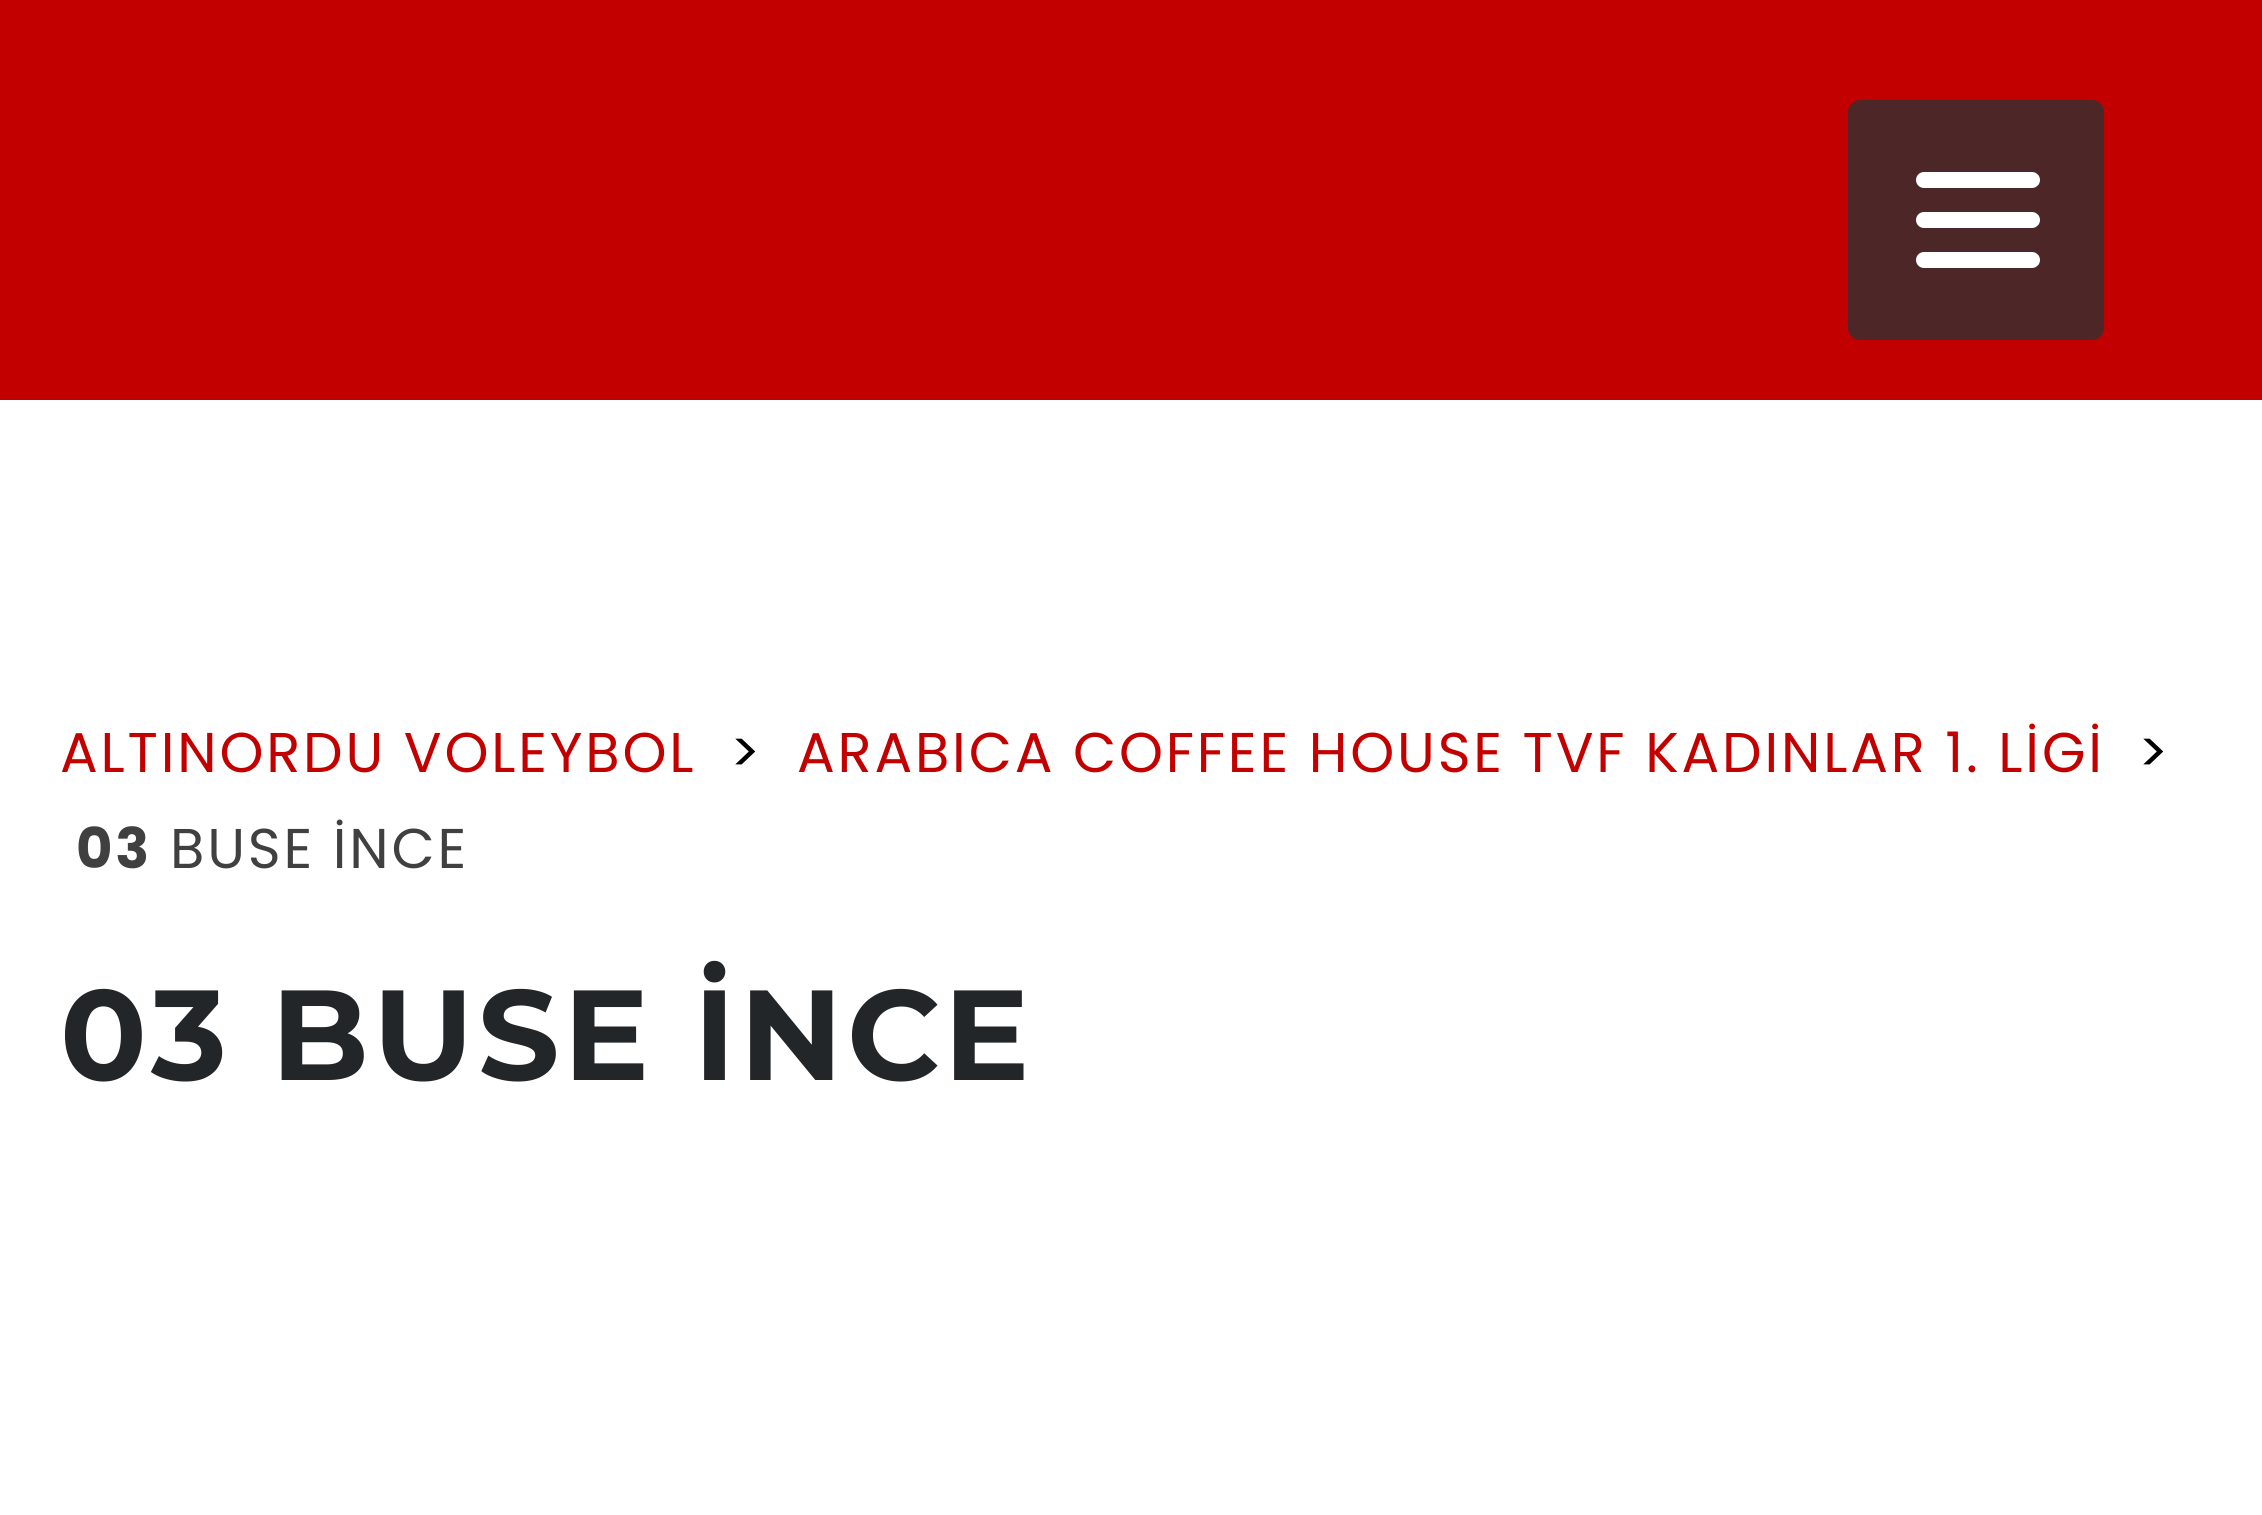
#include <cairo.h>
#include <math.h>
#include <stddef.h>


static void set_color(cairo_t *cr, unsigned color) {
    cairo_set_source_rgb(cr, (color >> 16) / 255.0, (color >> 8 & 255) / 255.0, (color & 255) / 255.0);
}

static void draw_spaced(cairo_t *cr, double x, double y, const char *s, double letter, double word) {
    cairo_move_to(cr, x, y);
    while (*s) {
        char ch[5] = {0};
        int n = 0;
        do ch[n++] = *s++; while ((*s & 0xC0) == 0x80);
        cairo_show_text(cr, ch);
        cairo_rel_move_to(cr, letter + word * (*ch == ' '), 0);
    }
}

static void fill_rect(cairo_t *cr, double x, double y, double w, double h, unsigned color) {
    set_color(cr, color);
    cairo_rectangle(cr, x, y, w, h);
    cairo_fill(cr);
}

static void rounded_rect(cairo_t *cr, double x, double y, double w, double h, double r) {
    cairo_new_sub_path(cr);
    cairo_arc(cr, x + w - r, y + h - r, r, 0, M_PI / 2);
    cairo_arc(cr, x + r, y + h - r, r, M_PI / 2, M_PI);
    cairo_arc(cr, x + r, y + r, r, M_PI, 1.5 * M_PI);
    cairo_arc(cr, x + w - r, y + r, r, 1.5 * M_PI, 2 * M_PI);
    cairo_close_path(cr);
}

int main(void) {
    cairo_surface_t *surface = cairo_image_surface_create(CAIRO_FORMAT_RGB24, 2262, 1515);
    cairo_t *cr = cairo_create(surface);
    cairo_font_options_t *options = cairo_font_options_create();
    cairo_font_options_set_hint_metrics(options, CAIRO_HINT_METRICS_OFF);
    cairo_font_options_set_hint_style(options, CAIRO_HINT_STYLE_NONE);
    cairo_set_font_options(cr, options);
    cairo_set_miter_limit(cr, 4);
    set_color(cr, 0xFFFFFF);
    cairo_paint(cr);
    fill_rect(cr, 0, 0, 2262, 400, 0xC30000);
    set_color(cr, 0x4D2728);
    rounded_rect(cr, 1848, 100, 256, 240, 12);
    cairo_fill(cr);
    set_color(cr, 0xFFFFFF);
    rounded_rect(cr, 1916, 172, 124, 16, 8);
    cairo_fill(cr);
    rounded_rect(cr, 1916, 212, 124, 16, 8);
    cairo_fill(cr);
    rounded_rect(cr, 1916, 252, 124, 16, 8);
    cairo_fill(cr);
    cairo_select_font_face(cr, "Poppins", CAIRO_FONT_SLANT_NORMAL, CAIRO_FONT_WEIGHT_NORMAL);
    cairo_set_font_size(cr, 56);
    set_color(cr, 0xC30000);
    draw_spaced(cr, 60, 772, "ALTINORDU VOLEYBOL", 2.8, 0);
    set_color(cr, 0x000000);
    draw_spaced(cr, 730, 772, ">", 2.8, 0);
    set_color(cr, 0xC30000);
    draw_spaced(cr, 797, 772, "ARABICA COFFEE HOUSE TVF KADINLAR 1. LİGİ", 2.8, 0);
    set_color(cr, 0x000000);
    draw_spaced(cr, 2138, 772, ">", 2.8, 0);
    cairo_select_font_face(cr, "Poppins", CAIRO_FONT_SLANT_NORMAL, CAIRO_FONT_WEIGHT_BOLD);
    set_color(cr, 0x404040);
    draw_spaced(cr, 76, 868, "03", 2.8, 0);
    cairo_select_font_face(cr, "Poppins", CAIRO_FONT_SLANT_NORMAL, CAIRO_FONT_WEIGHT_NORMAL);
    draw_spaced(cr, 170, 868, "BUSE İNCE", 2.8, 0);
    cairo_select_font_face(cr, "Montserrat", CAIRO_FONT_SLANT_NORMAL, CAIRO_FONT_WEIGHT_BOLD);
    cairo_set_font_size(cr, 128);
    set_color(cr, 0x232628);
    draw_spaced(cr, 60, 1080, "03 BUSE İNCE", 4, 0);
    cairo_surface_write_to_png(surface, "output.png");
    cairo_font_options_destroy(options);
    cairo_destroy(cr);
    cairo_surface_destroy(surface);
    return 0;
}
